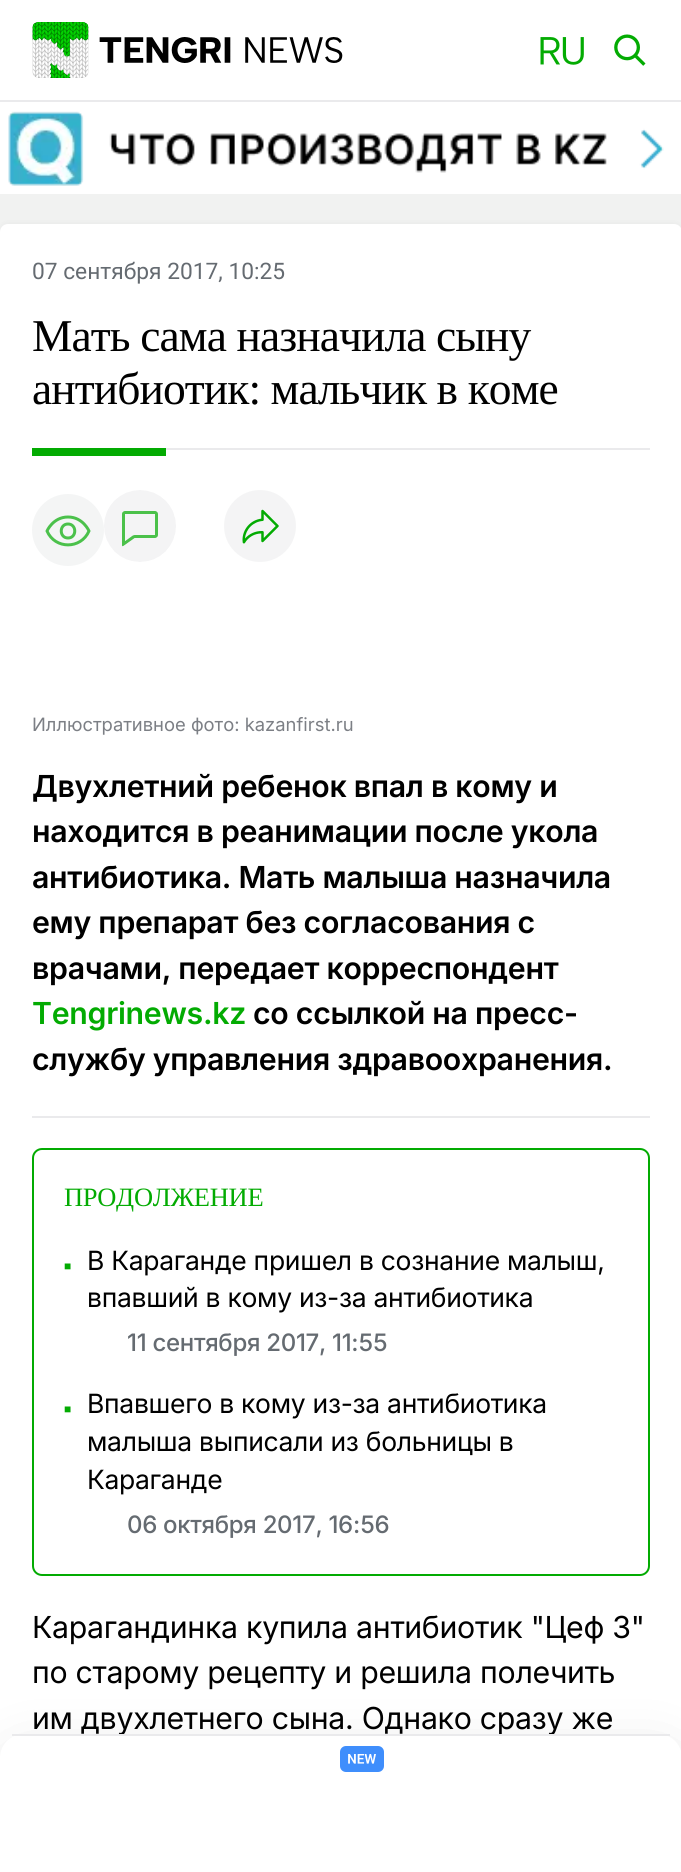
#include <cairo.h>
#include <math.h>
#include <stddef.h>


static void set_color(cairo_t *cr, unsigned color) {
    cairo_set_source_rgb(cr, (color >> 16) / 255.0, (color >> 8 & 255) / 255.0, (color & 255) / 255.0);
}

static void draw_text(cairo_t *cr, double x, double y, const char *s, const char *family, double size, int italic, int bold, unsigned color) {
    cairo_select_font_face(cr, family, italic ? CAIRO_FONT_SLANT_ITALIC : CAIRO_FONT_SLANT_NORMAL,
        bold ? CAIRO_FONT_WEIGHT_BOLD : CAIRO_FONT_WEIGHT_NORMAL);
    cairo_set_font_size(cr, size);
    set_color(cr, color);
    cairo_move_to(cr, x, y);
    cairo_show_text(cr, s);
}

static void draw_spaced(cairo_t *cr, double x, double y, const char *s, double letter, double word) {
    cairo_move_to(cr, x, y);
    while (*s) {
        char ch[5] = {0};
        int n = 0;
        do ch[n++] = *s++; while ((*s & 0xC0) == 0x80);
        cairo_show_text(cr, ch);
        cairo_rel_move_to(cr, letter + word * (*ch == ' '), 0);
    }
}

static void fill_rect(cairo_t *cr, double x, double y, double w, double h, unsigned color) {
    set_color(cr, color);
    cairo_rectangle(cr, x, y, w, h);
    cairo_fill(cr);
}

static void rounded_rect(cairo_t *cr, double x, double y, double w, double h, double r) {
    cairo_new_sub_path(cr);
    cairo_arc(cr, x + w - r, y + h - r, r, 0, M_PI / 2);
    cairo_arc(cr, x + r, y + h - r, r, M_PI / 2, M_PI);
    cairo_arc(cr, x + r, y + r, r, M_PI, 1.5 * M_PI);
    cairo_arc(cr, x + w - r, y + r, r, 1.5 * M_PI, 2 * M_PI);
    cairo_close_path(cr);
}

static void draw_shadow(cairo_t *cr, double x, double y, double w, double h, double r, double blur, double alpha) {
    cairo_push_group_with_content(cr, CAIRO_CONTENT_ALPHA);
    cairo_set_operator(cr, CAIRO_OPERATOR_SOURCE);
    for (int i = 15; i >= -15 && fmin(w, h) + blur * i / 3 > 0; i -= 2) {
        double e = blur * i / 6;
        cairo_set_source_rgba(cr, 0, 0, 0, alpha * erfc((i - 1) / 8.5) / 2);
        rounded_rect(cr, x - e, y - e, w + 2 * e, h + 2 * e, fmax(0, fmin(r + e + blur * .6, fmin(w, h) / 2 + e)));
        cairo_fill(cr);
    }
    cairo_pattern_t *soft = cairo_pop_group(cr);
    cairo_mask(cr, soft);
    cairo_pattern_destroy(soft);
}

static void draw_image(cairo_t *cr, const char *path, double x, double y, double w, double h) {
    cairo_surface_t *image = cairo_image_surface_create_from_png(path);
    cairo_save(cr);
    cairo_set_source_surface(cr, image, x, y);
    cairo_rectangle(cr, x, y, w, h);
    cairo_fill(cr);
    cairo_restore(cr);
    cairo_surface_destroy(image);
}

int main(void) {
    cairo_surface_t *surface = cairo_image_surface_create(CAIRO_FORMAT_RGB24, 681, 1872);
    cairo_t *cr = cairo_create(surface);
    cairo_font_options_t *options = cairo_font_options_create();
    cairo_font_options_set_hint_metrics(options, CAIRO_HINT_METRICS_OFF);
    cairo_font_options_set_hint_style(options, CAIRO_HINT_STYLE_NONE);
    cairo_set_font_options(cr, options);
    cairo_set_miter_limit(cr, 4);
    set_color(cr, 0xF1F2F1);
    cairo_paint(cr);
    fill_rect(cr, 0, 0, 681, 100, 0xFFFFFF);
    fill_rect(cr, 0, 100, 681, 2, 0xEAEAEC);
    draw_image(cr, "assets/img1.png", 32, 22, 311, 56);
    draw_image(cr, "assets/img2.png", 540, 37, 44, 28);
    draw_image(cr, "assets/img3.png", 614, 34, 32, 32);
    fill_rect(cr, 0, 102, 681, 92, 0xFFFFFF);
    draw_image(cr, "assets/img4.png", 8, 111, 656, 75);
    set_color(cr, 0x000000);
    draw_shadow(cr, 0, 224, 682, 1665, 8, 3, 0.05);
    set_color(cr, 0xFFFFFF);
    cairo_new_path(cr);
    cairo_move_to(cr, 8, 224);
    cairo_line_to(cr, 674, 224);
    cairo_curve_to(cr, 678.5, 224, 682, 227.5, 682, 232);
    cairo_line_to(cr, 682, 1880);
    cairo_line_to(cr, 0, 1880);
    cairo_line_to(cr, 0, 232);
    cairo_curve_to(cr, 0, 227.5, 3.5, 224, 8, 224);
    cairo_close_path(cr);
    cairo_fill(cr);
    draw_text(cr, 32, 279, "07 сентября 2017, 10:25", "Roboto", 22.75, 0, 0, 0x656B71);
    fill_rect(cr, 166, 448, 484, 2, 0xEAEAEC);
    cairo_select_font_face(cr, "Liberation Serif", CAIRO_FONT_SLANT_NORMAL, CAIRO_FONT_WEIGHT_NORMAL);
    cairo_set_font_size(cr, 45.5);
    set_color(cr, 0x000000);
    draw_spaced(cr, 32, 351, "Мать сама назначила сыну", -0.9, 0);
    draw_spaced(cr, 32, 404, "антибиотик: мальчик в коме", -0.9, 0);
    fill_rect(cr, 32, 448, 134, 8, 0x03AB02);
    set_color(cr, 0xF4F5F5);
    cairo_new_path(cr);
    cairo_arc(cr, 68, 530, 36, 0, 2 * M_PI);
    cairo_fill(cr);
    cairo_new_path(cr);
    cairo_move_to(cr, 68, 517);
    cairo_curve_to(cr, 53, 517, 47, 531, 47, 531);
    cairo_curve_to(cr, 55, 549.5, 81, 549.5, 89, 531);
    cairo_curve_to(cr, 89, 531, 83, 517, 68, 517);
    cairo_close_path(cr);
    cairo_move_to(cr, 68, 538);
    cairo_curve_to(cr, 77, 538, 77, 524, 68, 524);
    cairo_curve_to(cr, 59, 524, 59, 538, 68, 538);
    cairo_close_path(cr);
    set_color(cr, 0x4BC14B);
    cairo_set_line_width(cr, 3);
    cairo_set_line_cap(cr, CAIRO_LINE_CAP_ROUND);
    cairo_set_line_join(cr, CAIRO_LINE_JOIN_ROUND);
    cairo_stroke(cr);
    draw_image(cr, "assets/img5.png", 104, 490, 72, 72);
    draw_image(cr, "assets/img6.png", 224, 490, 72, 72);
    draw_text(cr, 32, 731, "Иллюстративное фото: kazanfirst.ru", "Inter", 18.4, 0, 0, 0x7C7F85);
    fill_rect(cr, 32, 1116, 618, 2, 0xEAEAEC);
    cairo_select_font_face(cr, "Inter SemiBold", CAIRO_FONT_SLANT_NORMAL, CAIRO_FONT_WEIGHT_NORMAL);
    cairo_set_font_size(cr, 30.3);
    set_color(cr, 0x000000);
    draw_spaced(cr, 32, 797, "Двухлетний ребенок впал в кому и", -0.3, 0);
    draw_spaced(cr, 32, 842, "находится в реанимации после укола", -0.3, 0);
    draw_spaced(cr, 32, 888, "антибиотика. Мать малыша назначила", -0.3, 0);
    draw_spaced(cr, 32, 933, "ему препарат без согласования с", -0.3, 0);
    draw_spaced(cr, 32, 979, "врачами, передает корреспондент", -0.3, 0);
    set_color(cr, 0x03AB02);
    draw_spaced(cr, 32, 1024, "Tengrinews.kz", -0.3, 0);
    set_color(cr, 0x000000);
    draw_spaced(cr, 253, 1024, "со ссылкой на пресс-", -0.3, 0);
    draw_spaced(cr, 32, 1070, "службу управления здравоохранения.", -0.3, 0);
    rounded_rect(cr, 33, 1149, 616, 426, 9);
    set_color(cr, 0x03AB02);
    cairo_set_line_width(cr, 2);
    cairo_set_line_cap(cr, CAIRO_LINE_CAP_BUTT);
    cairo_set_line_join(cr, CAIRO_LINE_JOIN_MITER);
    cairo_stroke(cr);
    cairo_select_font_face(cr, "Liberation Serif", CAIRO_FONT_SLANT_NORMAL, CAIRO_FONT_WEIGHT_NORMAL);
    cairo_set_font_size(cr, 26.5);
    draw_spaced(cr, 64, 1206, "ПРОДОЛЖЕНИЕ", -0.3, 0);
    cairo_set_font_size(cr, 12);
    draw_spaced(cr, 64, 1270, "■", -0.3, 0);
    cairo_select_font_face(cr, "Inter", CAIRO_FONT_SLANT_NORMAL, CAIRO_FONT_WEIGHT_NORMAL);
    cairo_set_font_size(cr, 26.5);
    set_color(cr, 0x000000);
    draw_spaced(cr, 87, 1270, "В Караганде пришел в сознание малыш,", -0.3, 0);
    draw_spaced(cr, 87, 1307, "впавший в кому из-за антибиотика", -0.3, 0);
    cairo_select_font_face(cr, "Inter Medium", CAIRO_FONT_SLANT_NORMAL, CAIRO_FONT_WEIGHT_NORMAL);
    cairo_set_font_size(cr, 24);
    set_color(cr, 0x656B71);
    draw_spaced(cr, 127, 1351, "11 сентября 2017, 11:55", -0.3, 0);
    cairo_select_font_face(cr, "Liberation Serif", CAIRO_FONT_SLANT_NORMAL, CAIRO_FONT_WEIGHT_NORMAL);
    cairo_set_font_size(cr, 12);
    set_color(cr, 0x03AB02);
    draw_spaced(cr, 64, 1413, "■", -0.3, 0);
    cairo_select_font_face(cr, "Inter", CAIRO_FONT_SLANT_NORMAL, CAIRO_FONT_WEIGHT_NORMAL);
    cairo_set_font_size(cr, 26.5);
    set_color(cr, 0x000000);
    draw_spaced(cr, 87, 1413, "Впавшего в кому из-за антибиотика", -0.3, 0);
    draw_spaced(cr, 87, 1451, "малыша выписали из больницы в", -0.3, 0);
    draw_spaced(cr, 87, 1489, "Караганде", -0.3, 0);
    cairo_select_font_face(cr, "Inter Medium", CAIRO_FONT_SLANT_NORMAL, CAIRO_FONT_WEIGHT_NORMAL);
    cairo_set_font_size(cr, 24);
    set_color(cr, 0x656B71);
    draw_spaced(cr, 127, 1533, "06 октября 2017, 16:56", -0.3, 0);
    cairo_select_font_face(cr, "Inter", CAIRO_FONT_SLANT_NORMAL, CAIRO_FONT_WEIGHT_NORMAL);
    cairo_set_font_size(cr, 30.3);
    set_color(cr, 0x000000);
    draw_spaced(cr, 32, 1638, "Карагандинка купила антибиотик \"Цеф 3\"", -0.3, 0);
    draw_spaced(cr, 32, 1683, "по старому рецепту и решила полечить", -0.3, 0);
    draw_spaced(cr, 32, 1729, "им двухлетнего сына. Однако сразу же", -0.3, 0);
    set_color(cr, 0x000000);
    draw_shadow(cr, 2, 1754, 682, 118, 24, 30, 0.12);
    set_color(cr, 0xFFFFFF);
    cairo_new_path(cr);
    cairo_move_to(cr, 24, 1734);
    cairo_line_to(cr, 658, 1734);
    cairo_curve_to(cr, 671.5, 1734, 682, 1744.5, 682, 1758);
    cairo_line_to(cr, 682, 1872);
    cairo_line_to(cr, 0, 1872);
    cairo_line_to(cr, 0, 1758);
    cairo_curve_to(cr, 0, 1744.5, 10.5, 1734, 24, 1734);
    cairo_close_path(cr);
    cairo_fill(cr);
    fill_rect(cr, 12, 1734, 658, 2, 0xEAEAEC);
    set_color(cr, 0x3F8EFC);
    rounded_rect(cr, 340, 1746, 44, 26, 6);
    cairo_fill(cr);
    draw_image(cr, "assets/img7.png", 348, 1754, 28, 10);
    cairo_surface_write_to_png(surface, "output.png");
    cairo_font_options_destroy(options);
    cairo_destroy(cr);
    cairo_surface_destroy(surface);
    return 0;
}
